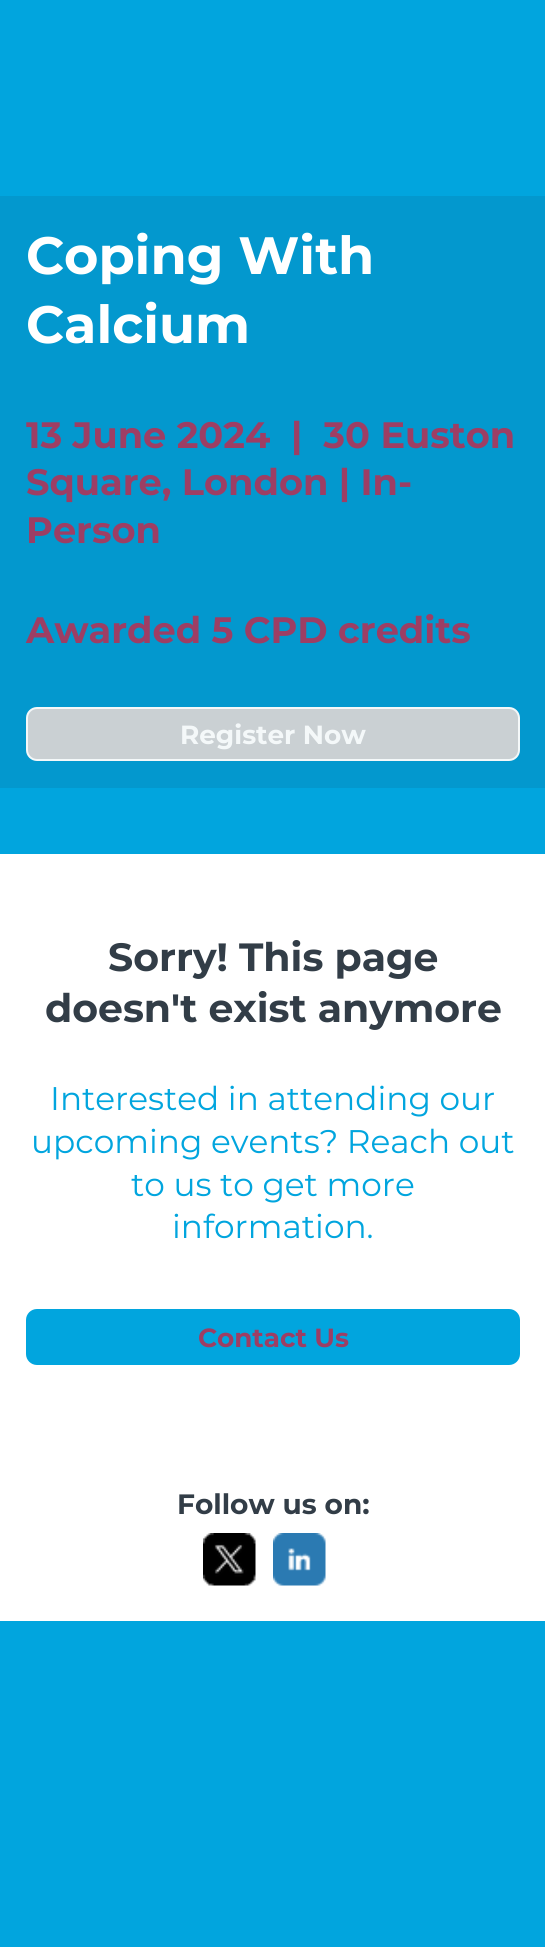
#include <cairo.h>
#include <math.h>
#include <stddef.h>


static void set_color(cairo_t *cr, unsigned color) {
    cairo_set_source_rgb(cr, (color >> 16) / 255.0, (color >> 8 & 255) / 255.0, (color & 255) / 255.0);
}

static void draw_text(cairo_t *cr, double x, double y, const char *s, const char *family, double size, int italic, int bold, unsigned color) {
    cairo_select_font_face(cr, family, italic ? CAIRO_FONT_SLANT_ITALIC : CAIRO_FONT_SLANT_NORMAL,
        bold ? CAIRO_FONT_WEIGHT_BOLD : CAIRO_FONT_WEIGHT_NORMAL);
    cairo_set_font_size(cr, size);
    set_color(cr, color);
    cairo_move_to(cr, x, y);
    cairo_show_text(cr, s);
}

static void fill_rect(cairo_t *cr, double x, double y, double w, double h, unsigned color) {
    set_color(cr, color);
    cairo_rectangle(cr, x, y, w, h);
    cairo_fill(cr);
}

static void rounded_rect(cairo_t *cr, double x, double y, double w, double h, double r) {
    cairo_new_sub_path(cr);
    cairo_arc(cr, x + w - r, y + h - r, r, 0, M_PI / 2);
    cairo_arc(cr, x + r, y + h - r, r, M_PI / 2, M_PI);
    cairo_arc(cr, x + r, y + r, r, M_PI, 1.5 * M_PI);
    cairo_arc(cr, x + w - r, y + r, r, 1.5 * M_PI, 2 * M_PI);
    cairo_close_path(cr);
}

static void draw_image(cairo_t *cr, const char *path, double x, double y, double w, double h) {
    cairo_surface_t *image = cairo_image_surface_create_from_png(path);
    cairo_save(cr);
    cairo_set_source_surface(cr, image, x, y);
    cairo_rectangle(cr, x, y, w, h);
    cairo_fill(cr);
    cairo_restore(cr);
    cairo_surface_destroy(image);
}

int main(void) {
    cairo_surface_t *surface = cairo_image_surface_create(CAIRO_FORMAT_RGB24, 545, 1947);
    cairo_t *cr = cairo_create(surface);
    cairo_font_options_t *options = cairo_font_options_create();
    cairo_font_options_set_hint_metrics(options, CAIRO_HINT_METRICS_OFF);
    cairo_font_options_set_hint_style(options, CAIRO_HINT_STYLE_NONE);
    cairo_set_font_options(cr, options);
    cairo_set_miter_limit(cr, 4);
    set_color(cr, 0x01A5DE);
    cairo_paint(cr);
    fill_rect(cr, 0, 196, 545, 592, 0x0398CE);
    draw_text(cr, 26, 274, "Coping With", "Montserrat", 52.5, 0, 1, 0xFFFFFF);
    draw_text(cr, 26, 343, "Calcium", "Montserrat", 52.5, 0, 1, 0xFFFFFF);
    draw_text(cr, 26, 448, "13 June 2024  |  30 Euston", "Montserrat", 36.75, 0, 1, 0x9D3E64);
    draw_text(cr, 26, 495, "Square, London | In-", "Montserrat", 36.75, 0, 1, 0x9D3E64);
    draw_text(cr, 26, 543, "Person", "Montserrat", 36.75, 0, 1, 0x9D3E64);
    draw_text(cr, 26, 643, "Awarded 5 CPD credits", "Montserrat", 36.75, 0, 1, 0x9D3E64);
    set_color(cr, 0xCAD0D3);
    rounded_rect(cr, 27, 708, 492, 52, 10);
    cairo_fill_preserve(cr);
    set_color(cr, 0xF4F8F9);
    cairo_stroke(cr);
    draw_text(cr, 180, 744, "Register Now", "Montserrat", 26.25, 0, 1, 0xF4F8F9);
    fill_rect(cr, 0, 854, 545, 767, 0xFFFFFF);
    draw_text(cr, 108, 971, "Sorry! This page", "Montserrat", 39.4, 0, 1, 0x323D47);
    draw_text(cr, 45, 1022, "doesn't exist anymore", "Montserrat", 39.4, 0, 1, 0x323D47);
    draw_text(cr, 50, 1110, "Interested in attending our", "Montserrat", 32.75, 0, 0, 0x01A5DE);
    draw_text(cr, 31, 1153, "upcoming events? Reach out", "Montserrat", 32.75, 0, 0, 0x01A5DE);
    draw_text(cr, 131, 1196, "to us to get more", "Montserrat", 32.75, 0, 0, 0x01A5DE);
    draw_text(cr, 172, 1238, "information.", "Montserrat", 32.75, 0, 0, 0x01A5DE);
    rounded_rect(cr, 27, 1310, 492, 54, 10);
    cairo_fill_preserve(cr);
    cairo_stroke(cr);
    draw_text(cr, 198, 1347, "Contact Us", "Montserrat", 26.25, 0, 1, 0x9D3E64);
    draw_text(cr, 177, 1514, "Follow us on:", "Montserrat", 28, 0, 1, 0x323D47);
    draw_image(cr, "assets/img1.png", 203, 1533, 53, 53);
    draw_image(cr, "assets/img2.png", 273, 1533, 53, 53);
    cairo_surface_write_to_png(surface, "output.png");
    cairo_font_options_destroy(options);
    cairo_destroy(cr);
    cairo_surface_destroy(surface);
    return 0;
}
